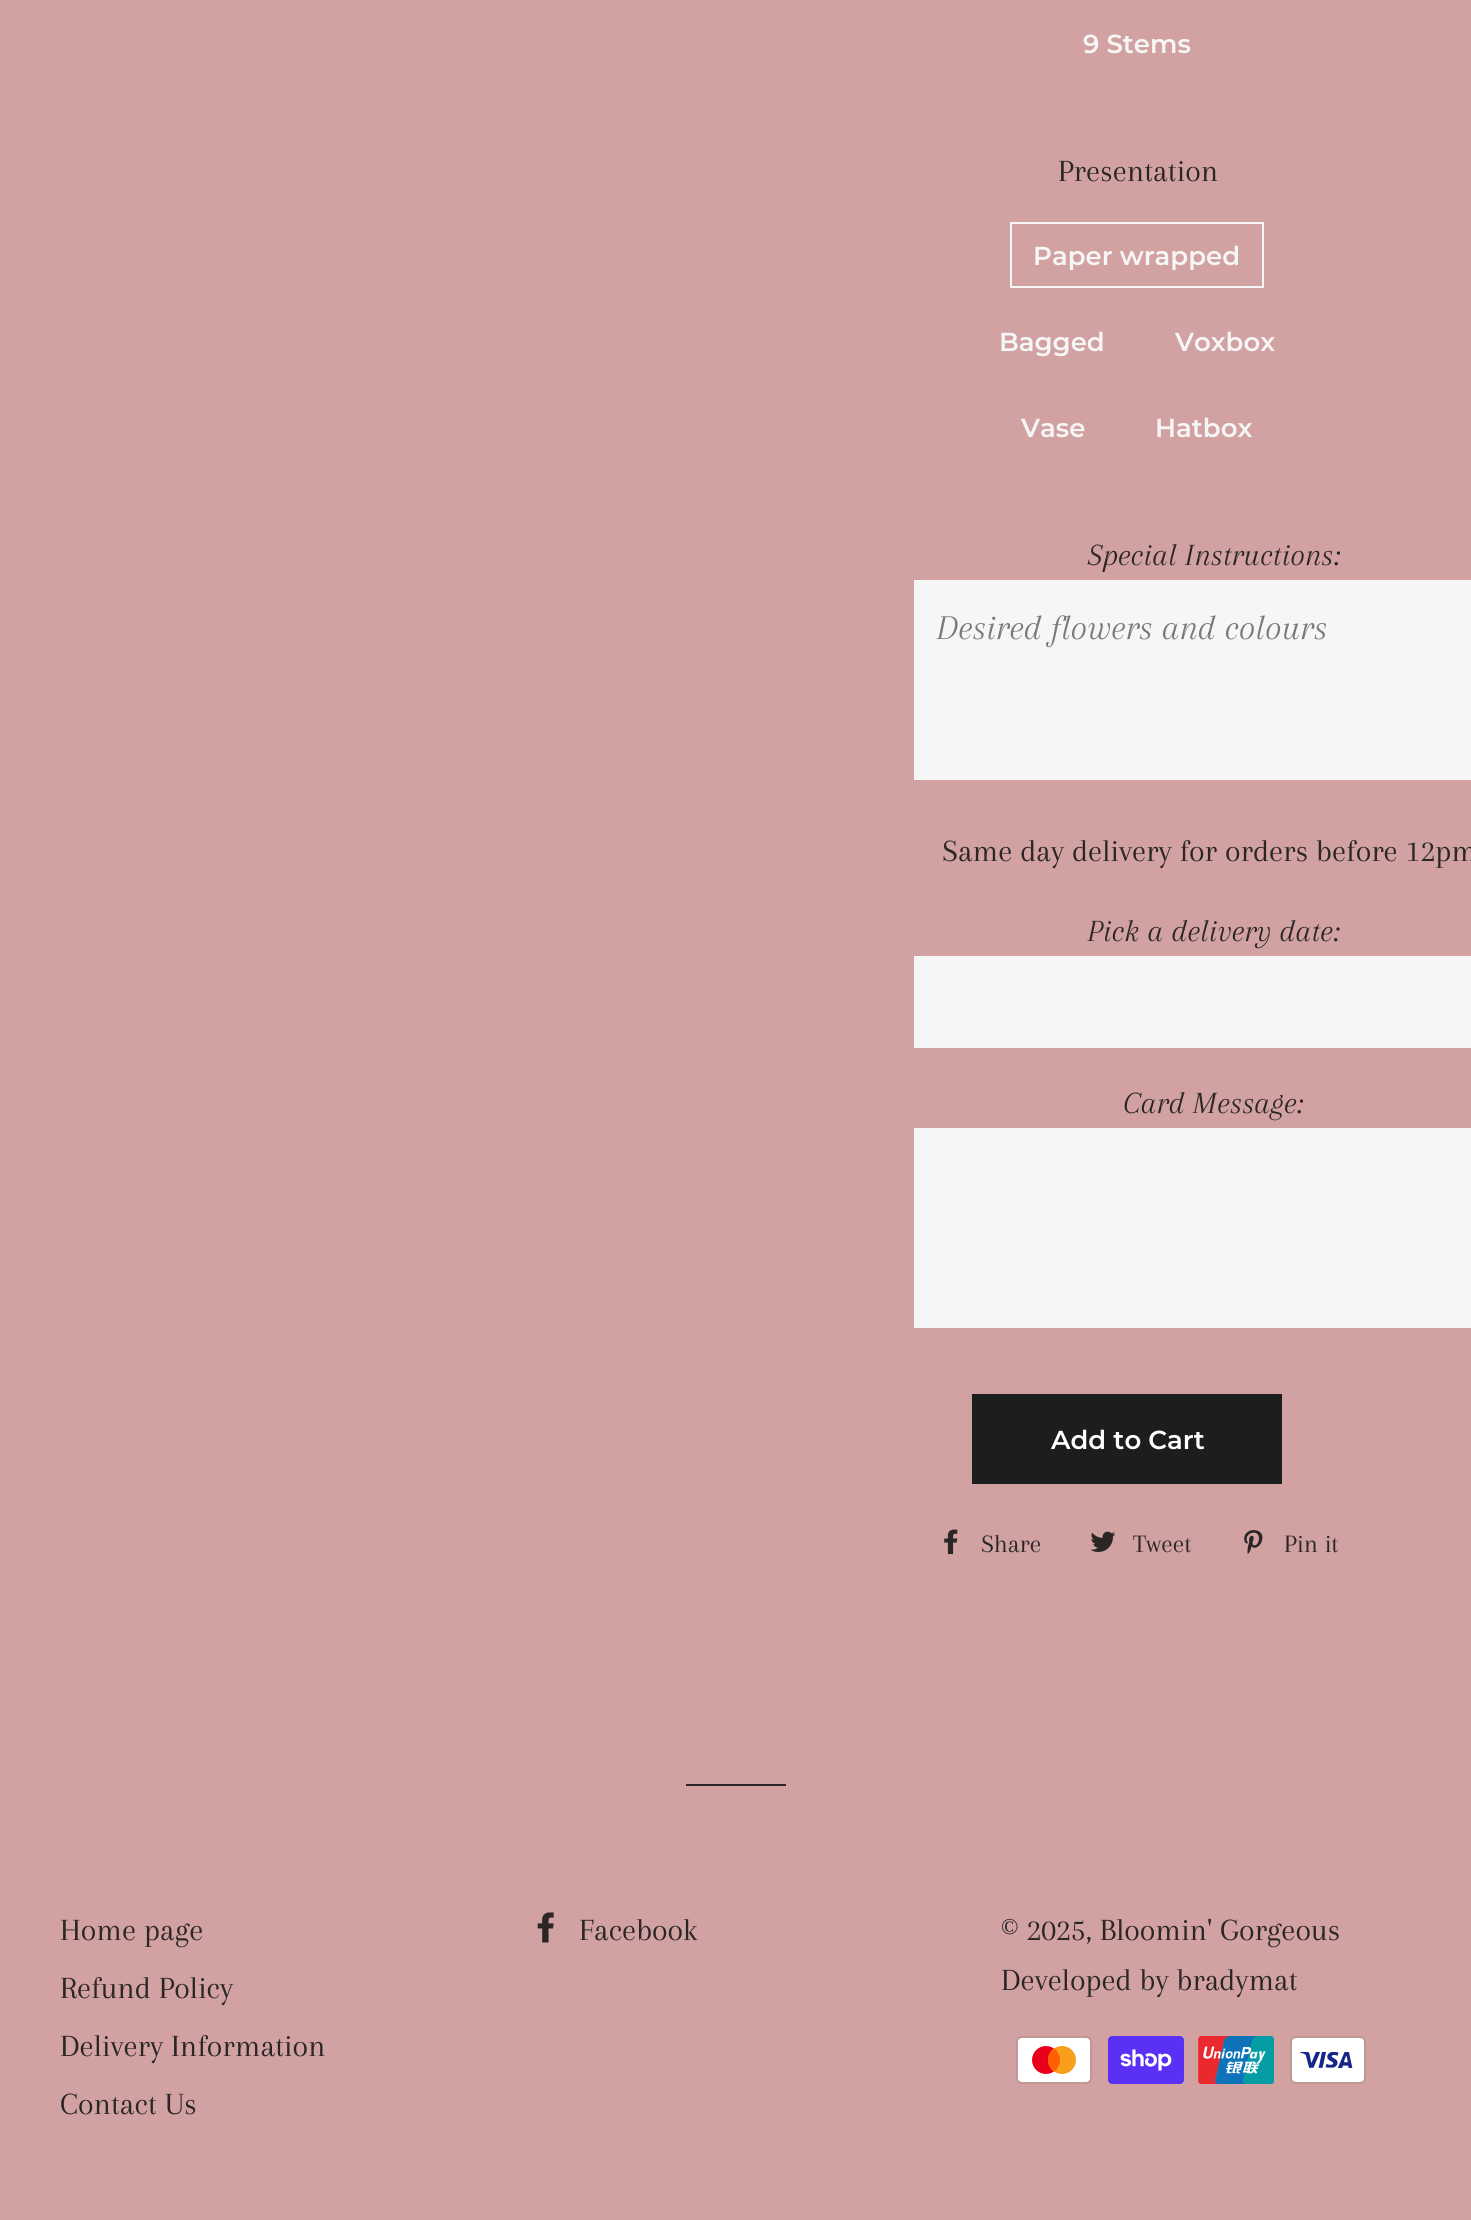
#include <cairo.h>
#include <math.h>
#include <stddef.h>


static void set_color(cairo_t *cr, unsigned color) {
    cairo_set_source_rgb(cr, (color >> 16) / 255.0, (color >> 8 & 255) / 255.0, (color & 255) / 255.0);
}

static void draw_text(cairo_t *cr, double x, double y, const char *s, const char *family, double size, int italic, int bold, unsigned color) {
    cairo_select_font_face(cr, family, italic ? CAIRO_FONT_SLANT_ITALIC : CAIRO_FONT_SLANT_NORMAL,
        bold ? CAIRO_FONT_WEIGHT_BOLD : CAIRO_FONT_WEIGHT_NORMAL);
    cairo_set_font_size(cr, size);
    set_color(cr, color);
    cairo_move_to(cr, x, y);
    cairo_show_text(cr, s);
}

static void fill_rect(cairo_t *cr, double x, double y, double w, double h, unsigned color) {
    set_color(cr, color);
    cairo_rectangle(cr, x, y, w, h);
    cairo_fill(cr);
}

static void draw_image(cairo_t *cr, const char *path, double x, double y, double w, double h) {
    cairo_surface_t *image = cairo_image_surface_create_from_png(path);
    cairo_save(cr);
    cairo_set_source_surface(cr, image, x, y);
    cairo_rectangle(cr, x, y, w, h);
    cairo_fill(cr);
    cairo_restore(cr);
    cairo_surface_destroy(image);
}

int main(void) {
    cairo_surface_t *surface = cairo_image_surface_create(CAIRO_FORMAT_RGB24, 1471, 2220);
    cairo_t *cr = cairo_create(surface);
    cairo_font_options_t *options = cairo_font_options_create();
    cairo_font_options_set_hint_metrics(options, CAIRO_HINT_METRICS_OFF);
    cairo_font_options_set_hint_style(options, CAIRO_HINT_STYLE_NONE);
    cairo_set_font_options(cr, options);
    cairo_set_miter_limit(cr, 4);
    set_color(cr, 0xD2A2A2);
    cairo_paint(cr);
    draw_text(cr, 1083, 53, "9 Stems", "Montserrat SemiBold", 26, 0, 0, 0xF6F6F6);
    draw_text(cr, 1058, 181, "Presentation", "Arapey", 32, 0, 0, 0x2B2626);
    cairo_rectangle(cr, 1011, 223, 252, 64);
    set_color(cr, 0xF6F6F6);
    cairo_stroke(cr);
    draw_text(cr, 1033, 265, "Paper wrapped", "Montserrat SemiBold", 26, 0, 0, 0xF6F6F6);
    draw_text(cr, 999, 351, "Bagged", "Montserrat SemiBold", 26, 0, 0, 0xF6F6F6);
    draw_text(cr, 1175, 351, "Voxbox", "Montserrat SemiBold", 26, 0, 0, 0xF6F6F6);
    draw_text(cr, 1021, 437, "Vase", "Montserrat SemiBold", 26, 0, 0, 0xF6F6F6);
    draw_text(cr, 1155, 437, "Hatbox", "Montserrat SemiBold", 26, 0, 0, 0xF6F6F6);
    draw_text(cr, 1088, 565, "Special Instructions:", "Arapey", 32, 1, 0, 0x2B2626);
    fill_rect(cr, 914, 580, 557, 200, 0xF6F6F6);
    draw_text(cr, 936, 639, "Desired flowers and colours", "Arapey", 36, 1, 0, 0x7C7979);
    draw_text(cr, 942, 861, "Same day delivery for orders before 12pm", "Arapey", 32, 0, 0, 0x2B2626);
    draw_text(cr, 1087, 941, "Pick a delivery date:", "Arapey", 32, 1, 0, 0x2B2626);
    fill_rect(cr, 914, 956, 557, 92, 0xF6F6F6);
    draw_text(cr, 1123, 1113, "Card Message:", "Arapey", 32, 1, 0, 0x2B2626);
    fill_rect(cr, 914, 1128, 557, 200, 0xF6F6F6);
    fill_rect(cr, 972, 1394, 310, 90, 0x1C1D1D);
    draw_text(cr, 1051, 1449, "Add to Cart", "Montserrat SemiBold", 26, 0, 0, 0xFFFFFF);
    draw_image(cr, "assets/img1.png", 944, 1529, 14, 26);
    draw_text(cr, 981, 1552, "Share", "Arapey", 26, 0, 0, 0x2B2626);
    draw_image(cr, "assets/img2.png", 1090, 1531, 26, 21);
    draw_text(cr, 1133, 1552, "Tweet", "Arapey", 26, 0, 0, 0x2B2626);
    draw_image(cr, "assets/img3.png", 1244, 1530, 19, 24);
    draw_text(cr, 1284, 1552, "Pin it", "Arapey", 26, 0, 0, 0x2B2626);
    fill_rect(cr, 686, 1784, 100, 2, 0x2B2626);
    draw_text(cr, 60, 1940, "Home page", "Arapey", 32, 0, 0, 0x2B2626);
    draw_text(cr, 60, 1998, "Refund Policy", "Arapey", 32, 0, 0, 0x2B2626);
    draw_text(cr, 60, 2056, "Delivery Information", "Arapey", 32, 0, 0, 0x2B2626);
    draw_text(cr, 60, 2114, "Contact Us", "Arapey", 32, 0, 0, 0x2B2626);
    draw_image(cr, "assets/img4.png", 537, 1912, 17, 31);
    draw_text(cr, 579, 1940, "Facebook", "Arapey", 32, 0, 0, 0x2B2626);
    draw_text(cr, 1001, 1940, "© 2025, Bloomin' Gorgeous", "Arapey", 32, 0, 0, 0x2B2626);
    draw_text(cr, 1001, 1990, "Developed by bradymat", "Arapey", 32, 0, 0, 0x2B2626);
    draw_image(cr, "assets/img5.png", 1016, 2036, 76, 48);
    draw_image(cr, "assets/img6.png", 1108, 2036, 76, 48);
    draw_image(cr, "assets/img7.png", 1198, 2036, 76, 48);
    draw_image(cr, "assets/img8.png", 1290, 2036, 76, 48);
    cairo_surface_write_to_png(surface, "output.png");
    cairo_font_options_destroy(options);
    cairo_destroy(cr);
    cairo_surface_destroy(surface);
    return 0;
}
